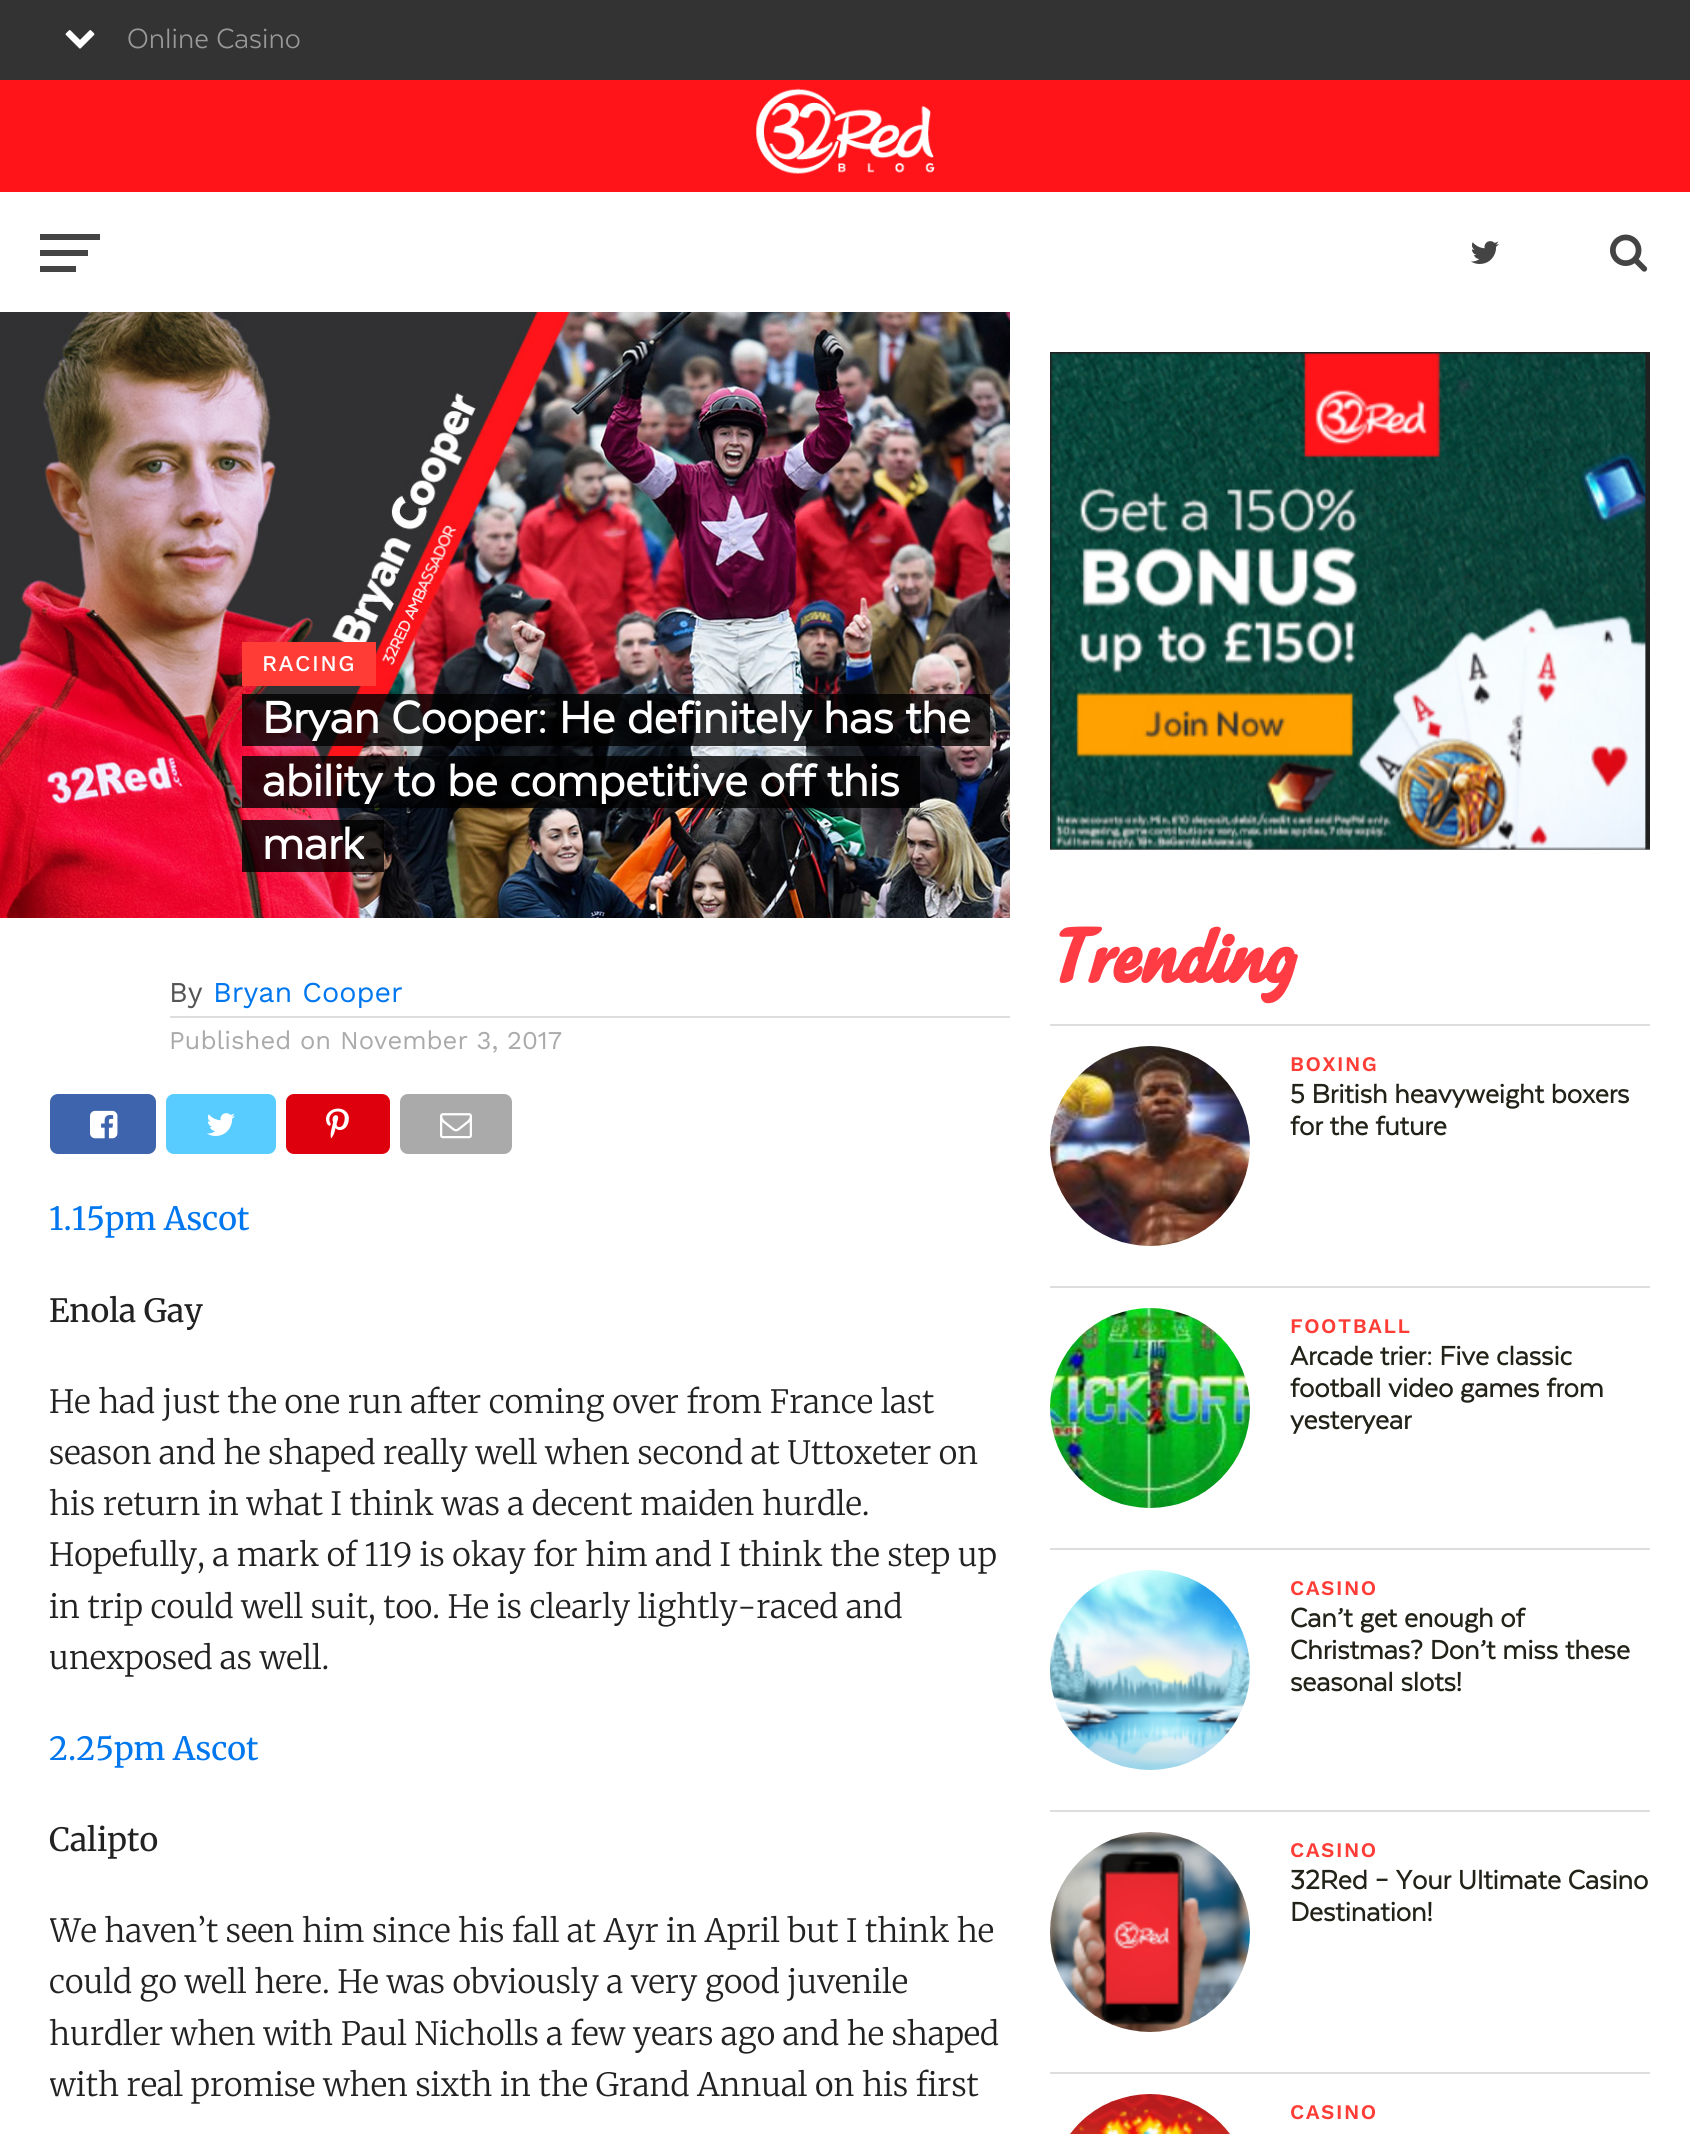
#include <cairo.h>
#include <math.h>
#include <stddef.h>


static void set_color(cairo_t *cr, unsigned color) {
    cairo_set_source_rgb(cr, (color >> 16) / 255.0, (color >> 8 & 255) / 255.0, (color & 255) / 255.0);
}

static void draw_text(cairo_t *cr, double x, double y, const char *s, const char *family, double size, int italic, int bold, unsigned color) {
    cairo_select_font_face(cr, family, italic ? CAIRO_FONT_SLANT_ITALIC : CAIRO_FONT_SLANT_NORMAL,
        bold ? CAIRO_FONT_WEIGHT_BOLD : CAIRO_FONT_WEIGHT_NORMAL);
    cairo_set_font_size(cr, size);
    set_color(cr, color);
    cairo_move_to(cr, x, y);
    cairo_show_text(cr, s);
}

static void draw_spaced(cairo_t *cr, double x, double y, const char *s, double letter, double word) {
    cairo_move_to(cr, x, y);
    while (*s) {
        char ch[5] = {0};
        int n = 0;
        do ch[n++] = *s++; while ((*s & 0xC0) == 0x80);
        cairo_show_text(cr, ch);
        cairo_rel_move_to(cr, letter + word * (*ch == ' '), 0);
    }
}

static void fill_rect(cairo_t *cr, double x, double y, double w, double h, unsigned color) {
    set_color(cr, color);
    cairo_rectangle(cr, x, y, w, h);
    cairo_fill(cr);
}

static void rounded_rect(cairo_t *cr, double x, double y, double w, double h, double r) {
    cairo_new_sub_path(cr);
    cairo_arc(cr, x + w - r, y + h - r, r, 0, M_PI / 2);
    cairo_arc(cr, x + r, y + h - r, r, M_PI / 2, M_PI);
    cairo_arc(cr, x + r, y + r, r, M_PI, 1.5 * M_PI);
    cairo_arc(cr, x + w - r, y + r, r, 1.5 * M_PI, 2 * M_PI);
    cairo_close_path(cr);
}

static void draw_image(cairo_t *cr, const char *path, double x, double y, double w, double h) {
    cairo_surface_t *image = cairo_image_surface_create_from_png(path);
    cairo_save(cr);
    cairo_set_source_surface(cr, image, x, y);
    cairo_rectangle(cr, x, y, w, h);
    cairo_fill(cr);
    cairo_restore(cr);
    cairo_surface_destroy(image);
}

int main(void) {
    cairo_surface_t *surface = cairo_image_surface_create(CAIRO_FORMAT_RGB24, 1690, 2134);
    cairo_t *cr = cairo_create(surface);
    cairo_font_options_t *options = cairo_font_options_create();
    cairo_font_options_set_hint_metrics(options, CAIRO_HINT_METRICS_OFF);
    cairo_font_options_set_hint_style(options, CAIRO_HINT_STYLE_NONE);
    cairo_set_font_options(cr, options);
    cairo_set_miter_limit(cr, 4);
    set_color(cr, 0xFFFFFF);
    cairo_paint(cr);
    fill_rect(cr, 0, 0, 1690, 80, 0x333333);
    draw_image(cr, "assets/img1.png", 65, 30, 30, 19);
    draw_text(cr, 127, 48, "Online Casino", "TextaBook", 32, 0, 0, 0x999999);
    fill_rect(cr, 0, 80, 1690, 112, 0xFF141A);
    draw_image(cr, "assets/img2.png", 756, 88, 179, 86);
    fill_rect(cr, 40, 234, 60, 6, 0x444444);
    fill_rect(cr, 40, 250, 48, 6, 0x444444);
    fill_rect(cr, 40, 266, 36, 6, 0x444444);
    draw_image(cr, "assets/img3.png", 1471, 241, 28, 23);
    draw_image(cr, "assets/img4.png", 1610, 234, 38, 38);
    draw_image(cr, "assets/img5.png", 0, 312, 1010, 606);
    fill_rect(cr, 242, 642, 134, 44, 0xFF3C36);
    cairo_select_font_face(cr, "Work Sans Medium", CAIRO_FONT_SLANT_NORMAL, CAIRO_FONT_WEIGHT_NORMAL);
    cairo_set_font_size(cr, 22.5);
    set_color(cr, 0xFFFFFF);
    draw_spaced(cr, 262, 671, "RACING", 1.5, 0);
    cairo_set_source_rgba(cr, 0, 0, 0, 0.8);
    cairo_rectangle(cr, 262, 694, 708, 52);
    cairo_fill(cr);
    draw_text(cr, 262, 733, "Bryan Cooper: He definitely has the", "TextaBook", 51.25, 0, 1, 0xFFFFFF);
    cairo_set_source_rgba(cr, 0, 0, 0, 0.8);
    cairo_rectangle(cr, 242, 694, 20, 52);
    cairo_fill(cr);
    cairo_rectangle(cr, 970, 694, 20, 52);
    cairo_fill(cr);
    cairo_rectangle(cr, 262, 756, 638, 52);
    cairo_fill(cr);
    draw_text(cr, 262, 796, "ability to be competitive off this", "TextaBook", 51.25, 0, 1, 0xFFFFFF);
    cairo_set_source_rgba(cr, 0, 0, 0, 0.8);
    cairo_rectangle(cr, 242, 756, 20, 52);
    cairo_fill(cr);
    cairo_rectangle(cr, 900, 756, 20, 52);
    cairo_fill(cr);
    cairo_rectangle(cr, 262, 820, 102, 52);
    cairo_fill(cr);
    draw_text(cr, 262, 859, "mark", "TextaBook", 51.25, 0, 1, 0xFFFFFF);
    cairo_set_source_rgba(cr, 0, 0, 0, 0.8);
    cairo_rectangle(cr, 242, 820, 20, 52);
    cairo_fill(cr);
    cairo_rectangle(cr, 364, 820, 20, 52);
    cairo_fill(cr);
    fill_rect(cr, 170, 1016, 840, 2, 0xDDDDDD);
    draw_text(cr, 169, 1002, "By", "Work Sans", 28.75, 0, 0, 0x555555);
    draw_text(cr, 213, 1002, "Bryan Cooper", "Work Sans", 28.75, 0, 0, 0x0077EE);
    draw_text(cr, 169, 1049, "Published on November 3, 2017", "Work Sans", 25.6, 0, 0, 0xAAAAAA);
    set_color(cr, 0x3E64AD);
    rounded_rect(cr, 50, 1094, 106, 60, 8);
    cairo_fill(cr);
    draw_image(cr, "assets/img6.png", 90, 1110, 28, 29);
    set_color(cr, 0x58CCFF);
    rounded_rect(cr, 166, 1094, 110, 60, 8);
    cairo_fill(cr);
    draw_image(cr, "assets/img7.png", 207, 1113, 28, 23);
    set_color(cr, 0xDE010D);
    rounded_rect(cr, 286, 1094, 104, 60, 8);
    cairo_fill(cr);
    draw_image(cr, "assets/img8.png", 326, 1108, 23, 31);
    set_color(cr, 0xAAAAAA);
    rounded_rect(cr, 400, 1094, 112, 60, 8);
    cairo_fill(cr);
    draw_image(cr, "assets/img9.png", 440, 1113, 32, 26);
    draw_text(cr, 49, 1230, "1.15pm Ascot", "Merriweather", 32, 0, 0, 0x0077EE);
    draw_text(cr, 49, 1322, "Enola Gay", "Merriweather", 32, 0, 0, 0x222222);
    draw_text(cr, 49, 1413, "He had just the one run after coming over from France last", "Merriweather Light", 32, 0, 0, 0x222222);
    draw_text(cr, 49, 1464, "season and he shaped really well when second at Uttoxeter on", "Merriweather Light", 32, 0, 0, 0x222222);
    draw_text(cr, 49, 1515, "his return in what I think was a decent maiden hurdle.", "Merriweather Light", 32, 0, 0, 0x222222);
    draw_text(cr, 49, 1566, "Hopefully, a mark of 119 is okay for him and I think the step up", "Merriweather Light", 32, 0, 0, 0x222222);
    draw_text(cr, 49, 1618, "in trip could well suit, too. He is clearly lightly-raced and", "Merriweather Light", 32, 0, 0, 0x222222);
    draw_text(cr, 49, 1669, "unexposed as well.", "Merriweather Light", 32, 0, 0, 0x222222);
    draw_text(cr, 49, 1760, "2.25pm Ascot", "Merriweather", 32, 0, 0, 0x0077EE);
    draw_text(cr, 49, 1851, "Calipto", "Merriweather", 32, 0, 0, 0x222222);
    cairo_save(cr);
    cairo_rectangle(cr, 50, 1194, 960, 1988);
    cairo_clip(cr);
    draw_text(cr, 49, 1942, "We haven’t seen him since his fall at Ayr in April but I think he", "Merriweather Light", 32, 0, 0, 0x222222);
    cairo_restore(cr);
    draw_text(cr, 49, 1993, "could go well here. He was obviously a very good juvenile", "Merriweather Light", 32, 0, 0, 0x222222);
    draw_text(cr, 49, 2045, "hurdler when with Paul Nicholls a few years ago and he shaped", "Merriweather Light", 32, 0, 0, 0x222222);
    cairo_save(cr);
    cairo_rectangle(cr, 50, 1194, 960, 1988);
    cairo_clip(cr);
    draw_text(cr, 49, 2096, "with real promise when sixth in the Grand Annual on his first", "Merriweather Light", 32, 0, 0, 0x222222);
    cairo_restore(cr);
    draw_image(cr, "assets/img10.png", 1050, 352, 600, 498);
    draw_text(cr, 1050, 983, "Trending", "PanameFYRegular", 84, 0, 1, 0xFF3C44);
    fill_rect(cr, 1050, 1024, 600, 2, 0xDDDDDD);
    draw_image(cr, "assets/img11.png", 1050, 1046, 200, 200);
    cairo_select_font_face(cr, "Work Sans SemiBold", CAIRO_FONT_SLANT_NORMAL, CAIRO_FONT_WEIGHT_NORMAL);
    cairo_set_font_size(cr, 20.75);
    set_color(cr, 0xFF3C36);
    draw_spaced(cr, 1290, 1071, "BOXING", 1.5, 0);
    draw_text(cr, 1290, 1103, "5 British heavyweight boxers", "TextaBook", 30.4, 0, 1, 0x222219);
    draw_text(cr, 1290, 1135, "for the future", "TextaBook", 30.4, 0, 1, 0x222219);
    fill_rect(cr, 1050, 1286, 600, 2, 0xDDDDDD);
    draw_image(cr, "assets/img12.png", 1050, 1308, 200, 200);
    cairo_select_font_face(cr, "Work Sans SemiBold", CAIRO_FONT_SLANT_NORMAL, CAIRO_FONT_WEIGHT_NORMAL);
    cairo_set_font_size(cr, 20.75);
    set_color(cr, 0xFF3C36);
    draw_spaced(cr, 1290, 1333, "FOOTBALL", 1.5, 0);
    draw_text(cr, 1290, 1365, "Arcade trier: Five classic", "TextaBook", 30.4, 0, 1, 0x222219);
    draw_text(cr, 1290, 1397, "football video games from", "TextaBook", 30.4, 0, 1, 0x222219);
    draw_text(cr, 1290, 1429, "yesteryear", "TextaBook", 30.4, 0, 1, 0x222219);
    fill_rect(cr, 1050, 1548, 600, 2, 0xDDDDDD);
    draw_image(cr, "assets/img13.png", 1050, 1570, 200, 200);
    cairo_select_font_face(cr, "Work Sans SemiBold", CAIRO_FONT_SLANT_NORMAL, CAIRO_FONT_WEIGHT_NORMAL);
    cairo_set_font_size(cr, 20.75);
    set_color(cr, 0xFF3C36);
    draw_spaced(cr, 1290, 1595, "CASINO", 1.5, 0);
    draw_text(cr, 1290, 1627, "Can’t get enough of", "TextaBook", 30.4, 0, 1, 0x222219);
    draw_text(cr, 1290, 1659, "Christmas? Don’t miss these", "TextaBook", 30.4, 0, 1, 0x222219);
    draw_text(cr, 1290, 1691, "seasonal slots!", "TextaBook", 30.4, 0, 1, 0x222219);
    fill_rect(cr, 1050, 1810, 600, 2, 0xDDDDDD);
    draw_image(cr, "assets/img14.png", 1050, 1832, 200, 200);
    cairo_select_font_face(cr, "Work Sans SemiBold", CAIRO_FONT_SLANT_NORMAL, CAIRO_FONT_WEIGHT_NORMAL);
    cairo_set_font_size(cr, 20.75);
    set_color(cr, 0xFF3C36);
    draw_spaced(cr, 1290, 1857, "CASINO", 1.5, 0);
    draw_text(cr, 1290, 1889, "32Red – Your Ultimate Casino", "TextaBook", 30.4, 0, 1, 0x222219);
    draw_text(cr, 1290, 1921, "Destination!", "TextaBook", 30.4, 0, 1, 0x222219);
    fill_rect(cr, 1050, 2072, 600, 2, 0xDDDDDD);
    draw_image(cr, "assets/img15.png", 1070, 2094, 160, 40);
    cairo_select_font_face(cr, "Work Sans SemiBold", CAIRO_FONT_SLANT_NORMAL, CAIRO_FONT_WEIGHT_NORMAL);
    cairo_set_font_size(cr, 20.75);
    set_color(cr, 0xFF3C36);
    draw_spaced(cr, 1290, 2119, "CASINO", 1.5, 0);
    cairo_surface_write_to_png(surface, "output.png");
    cairo_font_options_destroy(options);
    cairo_destroy(cr);
    cairo_surface_destroy(surface);
    return 0;
}
